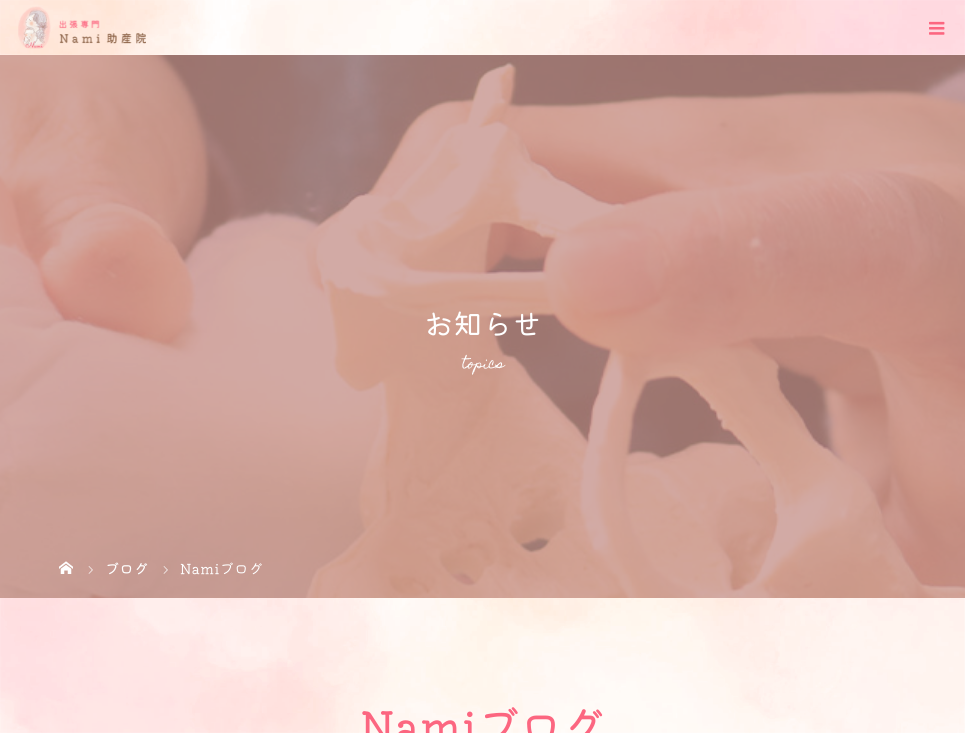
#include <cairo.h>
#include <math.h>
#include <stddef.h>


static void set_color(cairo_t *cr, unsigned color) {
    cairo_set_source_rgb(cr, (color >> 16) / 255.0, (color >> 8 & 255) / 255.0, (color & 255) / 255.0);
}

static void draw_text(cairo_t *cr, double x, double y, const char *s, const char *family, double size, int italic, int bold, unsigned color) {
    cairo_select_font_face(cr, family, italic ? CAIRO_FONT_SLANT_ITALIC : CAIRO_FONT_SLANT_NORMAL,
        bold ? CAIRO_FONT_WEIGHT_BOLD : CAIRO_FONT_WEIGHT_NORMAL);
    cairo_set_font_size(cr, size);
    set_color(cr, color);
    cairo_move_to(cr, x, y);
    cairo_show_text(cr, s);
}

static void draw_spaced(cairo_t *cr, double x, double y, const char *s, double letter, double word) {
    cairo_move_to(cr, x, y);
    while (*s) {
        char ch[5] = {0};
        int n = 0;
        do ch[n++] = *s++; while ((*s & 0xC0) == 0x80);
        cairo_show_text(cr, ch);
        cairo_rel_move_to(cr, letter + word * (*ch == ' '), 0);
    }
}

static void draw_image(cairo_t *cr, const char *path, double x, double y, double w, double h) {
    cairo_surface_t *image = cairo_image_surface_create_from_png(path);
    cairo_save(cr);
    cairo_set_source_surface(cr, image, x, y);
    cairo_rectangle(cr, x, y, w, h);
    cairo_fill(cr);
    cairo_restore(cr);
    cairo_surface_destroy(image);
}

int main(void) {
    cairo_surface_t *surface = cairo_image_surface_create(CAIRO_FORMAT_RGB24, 965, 733);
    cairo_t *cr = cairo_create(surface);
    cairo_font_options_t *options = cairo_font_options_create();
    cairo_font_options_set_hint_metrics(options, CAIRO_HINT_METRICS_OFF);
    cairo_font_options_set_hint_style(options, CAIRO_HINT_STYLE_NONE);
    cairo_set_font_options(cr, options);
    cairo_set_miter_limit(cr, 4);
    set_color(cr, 0xFFFFFF);
    cairo_paint(cr);
    draw_image(cr, "assets/img1.png", 0, 0, 965, 55);
    draw_image(cr, "assets/img2.png", 18, 6, 128, 43);
    draw_image(cr, "assets/img3.png", 929, 21, 16, 14);
    draw_image(cr, "assets/img4.png", 0, 55, 965, 543);
    cairo_select_font_face(cr, "Kiwi Maru", CAIRO_FONT_SLANT_NORMAL, CAIRO_FONT_WEIGHT_NORMAL);
    cairo_set_font_size(cr, 29);
    set_color(cr, 0xFFFFFF);
    draw_spaced(cr, 424, 335, "お知らせ", 0.5, 0);
    draw_text(cr, 462, 368, "topics", "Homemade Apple", 13, 0, 0, 0xFFFFFF);
    draw_image(cr, "assets/img5.png", 59, 561, 14, 13);
    draw_image(cr, "assets/img6.png", 88, 566, 5, 8);
    cairo_select_font_face(cr, "Kiwi Maru Medium", CAIRO_FONT_SLANT_NORMAL, CAIRO_FONT_WEIGHT_NORMAL);
    cairo_set_font_size(cr, 14);
    draw_spaced(cr, 105, 574, "ブログ", 0.5, 0);
    draw_image(cr, "assets/img7.png", 163, 566, 5, 8);
    cairo_select_font_face(cr, "Kiwi Maru", CAIRO_FONT_SLANT_NORMAL, CAIRO_FONT_WEIGHT_NORMAL);
    draw_spaced(cr, 180, 574, "Namiブログ", 0.5, 0);
    draw_image(cr, "assets/img8.png", 0, 598, 965, 135);
    cairo_select_font_face(cr, "Kiwi Maru Medium", CAIRO_FONT_SLANT_NORMAL, CAIRO_FONT_WEIGHT_NORMAL);
    cairo_set_font_size(cr, 42);
    set_color(cr, 0xFC6680);
    draw_spaced(cr, 360, 742, "Namiブログ", 0.5, 0);
    cairo_surface_write_to_png(surface, "output.png");
    cairo_font_options_destroy(options);
    cairo_destroy(cr);
    cairo_surface_destroy(surface);
    return 0;
}
